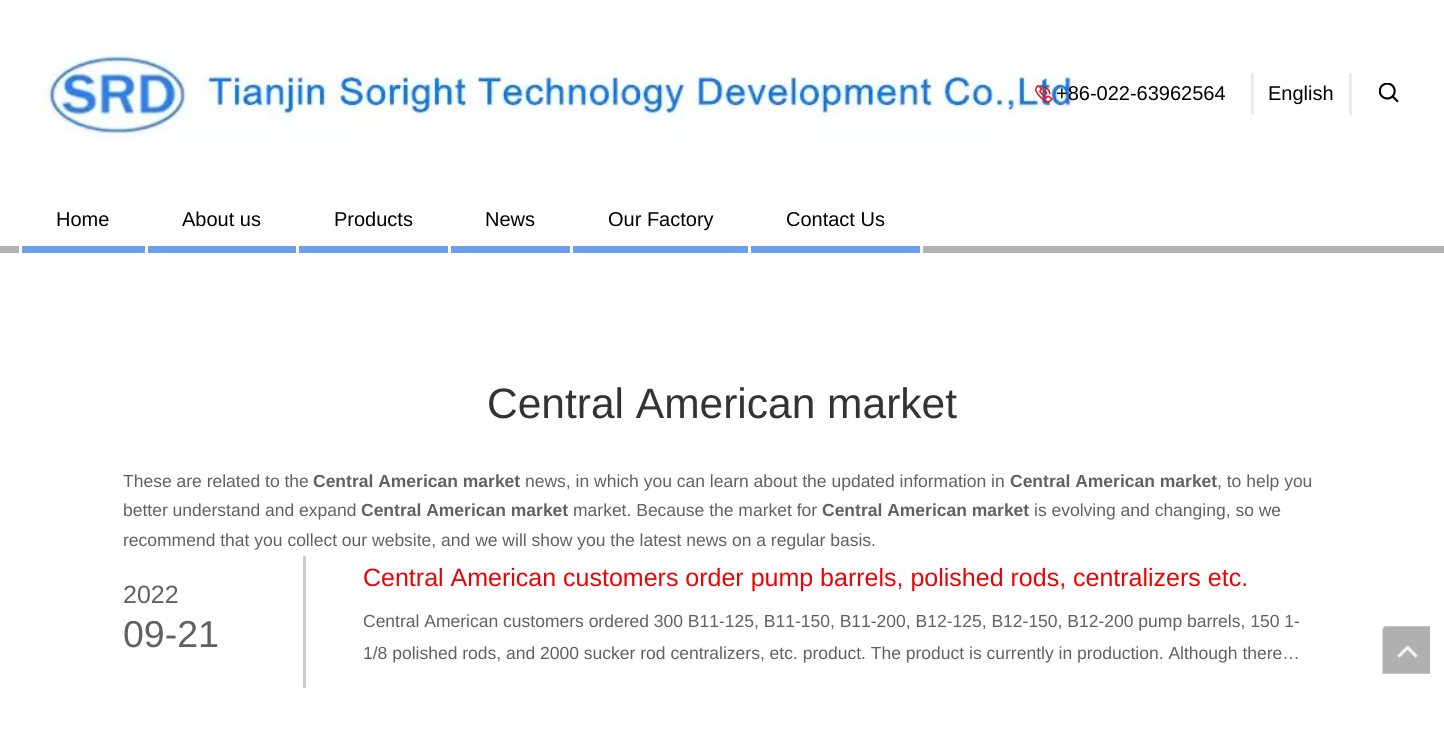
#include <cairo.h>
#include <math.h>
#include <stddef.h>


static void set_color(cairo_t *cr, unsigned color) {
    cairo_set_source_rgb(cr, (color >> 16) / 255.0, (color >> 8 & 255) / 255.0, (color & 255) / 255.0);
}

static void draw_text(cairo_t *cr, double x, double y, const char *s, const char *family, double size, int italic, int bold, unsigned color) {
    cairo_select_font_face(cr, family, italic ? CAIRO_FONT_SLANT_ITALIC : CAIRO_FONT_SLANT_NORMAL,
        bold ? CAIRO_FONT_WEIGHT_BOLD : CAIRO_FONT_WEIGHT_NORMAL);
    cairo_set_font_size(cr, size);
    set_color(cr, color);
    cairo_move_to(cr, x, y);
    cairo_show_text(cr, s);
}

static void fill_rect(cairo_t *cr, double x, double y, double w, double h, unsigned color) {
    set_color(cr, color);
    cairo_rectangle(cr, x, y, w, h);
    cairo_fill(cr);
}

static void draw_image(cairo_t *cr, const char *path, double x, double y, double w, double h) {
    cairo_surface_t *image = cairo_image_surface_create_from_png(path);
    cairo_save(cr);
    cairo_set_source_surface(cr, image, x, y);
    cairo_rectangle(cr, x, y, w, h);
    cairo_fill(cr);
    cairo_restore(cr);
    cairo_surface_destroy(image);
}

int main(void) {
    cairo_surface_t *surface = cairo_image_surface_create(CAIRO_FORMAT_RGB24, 1444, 743);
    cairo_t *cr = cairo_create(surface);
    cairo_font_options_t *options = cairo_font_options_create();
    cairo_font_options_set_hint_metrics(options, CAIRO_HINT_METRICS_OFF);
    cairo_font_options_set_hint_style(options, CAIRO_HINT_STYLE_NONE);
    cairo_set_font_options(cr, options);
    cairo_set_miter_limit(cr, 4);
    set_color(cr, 0xFFFFFF);
    cairo_paint(cr);
    draw_image(cr, "assets/img1.png", 42, 49, 1032, 90);
    draw_image(cr, "assets/img2.png", 1035, 85, 18, 18);
    draw_text(cr, 1056, 100, "+86-022-63962564", "Liberation Sans", 20, 0, 0, 0x000000);
    fill_rect(cr, 1349, 73, 3, 42, 0xECECEC);
    fill_rect(cr, 1251, 73, 3, 42, 0xECECEC);
    draw_text(cr, 1268, 100, "English", "Liberation Sans", 20, 0, 0, 0x000000);
    draw_image(cr, "assets/img3.png", 1379, 83, 20, 20);
    draw_text(cr, 56, 226, "Home", "Liberation Sans", 20, 0, 0, 0x000000);
    fill_rect(cr, 0, 246, 1444, 7, 0xB2B2B2);
    fill_rect(cr, 21, 246, 124, 7, 0x6D9EEB);
    fill_rect(cr, 19, 246, 3, 7, 0xFFFFFF);
    draw_text(cr, 182, 226, "About us", "Liberation Sans", 20, 0, 0, 0x000000);
    fill_rect(cr, 148, 246, 148, 7, 0x6D9EEB);
    fill_rect(cr, 145, 246, 3, 7, 0xFFFFFF);
    draw_text(cr, 334, 226, "Products", "Liberation Sans", 20, 0, 0, 0x000000);
    fill_rect(cr, 299, 246, 149, 7, 0x6D9EEB);
    fill_rect(cr, 296, 246, 3, 7, 0xFFFFFF);
    draw_text(cr, 485, 226, "News", "Liberation Sans", 20, 0, 0, 0x000000);
    fill_rect(cr, 450, 246, 120, 7, 0x6D9EEB);
    fill_rect(cr, 448, 246, 3, 7, 0xFFFFFF);
    draw_text(cr, 608, 226, "Our Factory", "Liberation Sans", 20, 0, 0, 0x000000);
    fill_rect(cr, 573, 246, 175, 7, 0x6D9EEB);
    fill_rect(cr, 570, 246, 3, 7, 0xFFFFFF);
    draw_text(cr, 786, 226, "Contact Us", "Liberation Sans", 20, 0, 0, 0x000000);
    fill_rect(cr, 750, 246, 170, 7, 0x6D9EEB);
    fill_rect(cr, 748, 246, 3, 7, 0xFFFFFF);
    fill_rect(cr, 920, 246, 3, 7, 0xFFFFFF);
    draw_text(cr, 487, 418, "Central American market", "Liberation Sans", 42.5, 0, 0, 0x333333);
    draw_text(cr, 123, 487, "These are related to the", "Liberation Sans", 17.5, 0, 0, 0x616161);
    draw_text(cr, 313, 487, "Central American market", "Liberation Sans", 17.5, 0, 1, 0x616161);
    draw_text(cr, 525, 487, "news, in which you can learn about the updated information in", "Liberation Sans", 17.5, 0, 0, 0x616161);
    draw_text(cr, 1010, 487, "Central American market", "Liberation Sans", 17.5, 0, 1, 0x616161);
    draw_text(cr, 1217, 487, ", to help you", "Liberation Sans", 17.5, 0, 0, 0x616161);
    draw_text(cr, 123, 516, "better understand and expand", "Liberation Sans", 17.5, 0, 0, 0x616161);
    draw_text(cr, 361, 516, "Central American market", "Liberation Sans", 17.5, 0, 1, 0x616161);
    draw_text(cr, 573, 516, "market. Because the market for", "Liberation Sans", 17.5, 0, 0, 0x616161);
    draw_text(cr, 822, 516, "Central American market", "Liberation Sans", 17.5, 0, 1, 0x616161);
    draw_text(cr, 1034, 516, "is evolving and changing, so we", "Liberation Sans", 17.5, 0, 0, 0x616161);
    draw_text(cr, 123, 546, "recommend that you collect our website, and we will show you the latest news on a regular basis.", "Liberation Sans", 17.5, 0, 0, 0x616161);
    draw_text(cr, 363, 586, "Central American customers order pump barrels, polished rods, centralizers etc.", "Liberation Sans", 25, 0, 0, 0xEB0303);
    fill_rect(cr, 303, 556, 3, 132, 0xCCCCCC);
    draw_text(cr, 123, 603, "2022", "Liberation Sans", 25, 0, 0, 0x616161);
    draw_text(cr, 123, 647, "09-21", "Liberation Sans", 37.5, 0, 0, 0x616161);
    draw_text(cr, 363, 627, "Central American customers ordered 300 B11-125, B11-150, B11-200, B12-125, B12-150, B12-200 pump barrels, 150 1-", "Liberation Sans", 17.5, 0, 0, 0x616161);
    draw_text(cr, 363, 659, "1/8 polished rods, and 2000 sucker rod centralizers, etc. product. The product is currently in production. Although there…", "Liberation Sans", 17.5, 0, 0, 0x616161);
    draw_image(cr, "assets/img4.png", 1382, 626, 48, 48);
    cairo_surface_write_to_png(surface, "output.png");
    cairo_font_options_destroy(options);
    cairo_destroy(cr);
    cairo_surface_destroy(surface);
    return 0;
}
